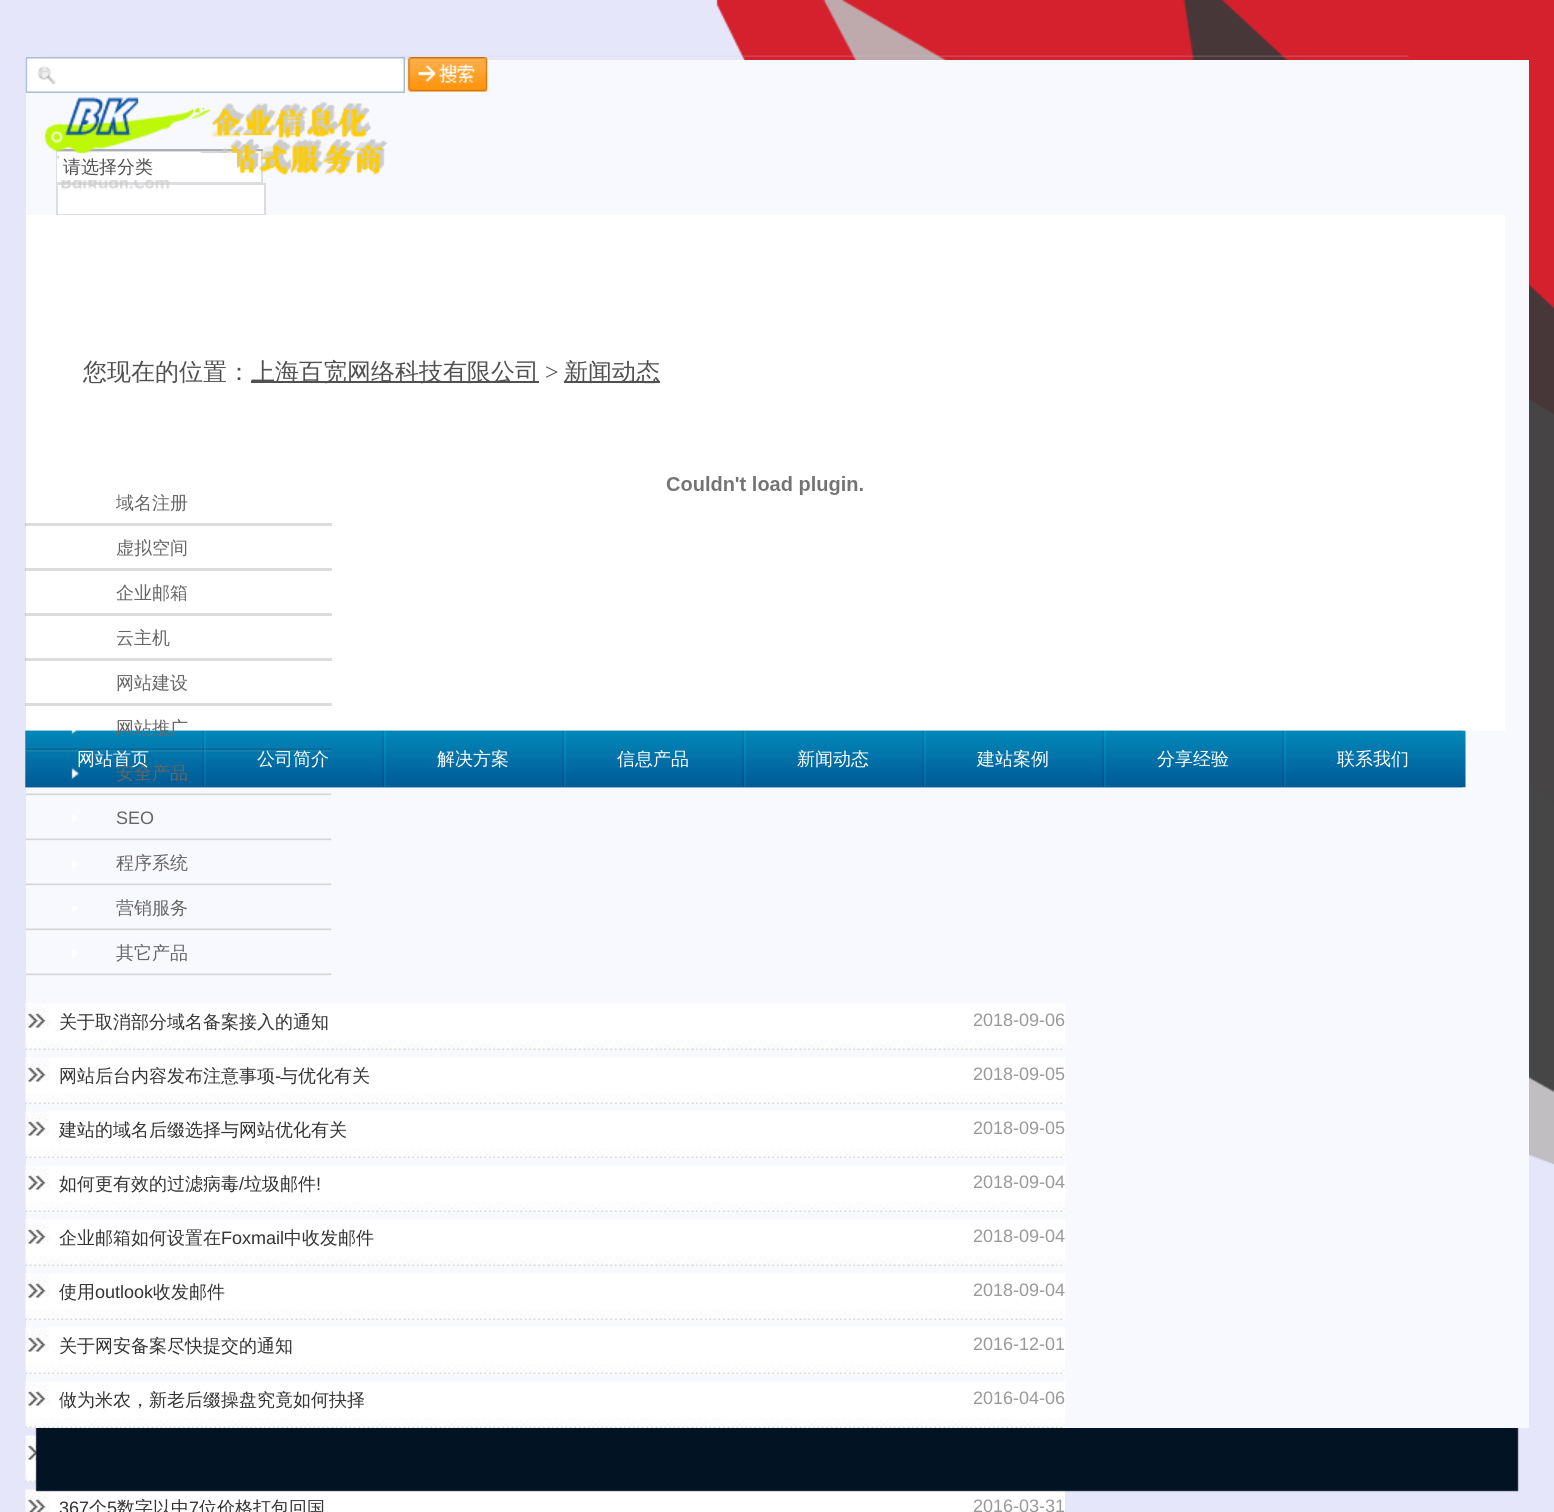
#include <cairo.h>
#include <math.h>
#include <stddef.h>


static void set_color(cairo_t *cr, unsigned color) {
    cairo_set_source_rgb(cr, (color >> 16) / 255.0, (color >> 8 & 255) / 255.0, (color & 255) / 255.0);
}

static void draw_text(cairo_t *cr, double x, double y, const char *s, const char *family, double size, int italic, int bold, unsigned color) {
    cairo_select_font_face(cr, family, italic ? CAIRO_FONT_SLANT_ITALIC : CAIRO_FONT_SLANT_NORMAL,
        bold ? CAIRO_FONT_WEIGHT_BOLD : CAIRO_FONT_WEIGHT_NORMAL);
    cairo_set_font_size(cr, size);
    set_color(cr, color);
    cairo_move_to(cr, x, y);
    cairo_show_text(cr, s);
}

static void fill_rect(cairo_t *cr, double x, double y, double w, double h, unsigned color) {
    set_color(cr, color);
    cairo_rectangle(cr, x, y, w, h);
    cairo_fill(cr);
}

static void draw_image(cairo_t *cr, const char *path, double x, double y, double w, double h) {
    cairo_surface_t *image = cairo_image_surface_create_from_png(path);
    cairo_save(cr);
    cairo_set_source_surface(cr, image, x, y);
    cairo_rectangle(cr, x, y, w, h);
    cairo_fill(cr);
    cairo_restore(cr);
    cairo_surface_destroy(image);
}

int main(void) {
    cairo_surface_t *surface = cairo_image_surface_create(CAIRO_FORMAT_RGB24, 1554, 1512);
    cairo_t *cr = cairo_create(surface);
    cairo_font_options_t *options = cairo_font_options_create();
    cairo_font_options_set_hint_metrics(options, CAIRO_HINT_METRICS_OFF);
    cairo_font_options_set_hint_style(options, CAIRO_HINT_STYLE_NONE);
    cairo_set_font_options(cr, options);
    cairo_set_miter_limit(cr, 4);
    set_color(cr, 0xE6E6FA);
    cairo_paint(cr);
    fill_rect(cr, 25, 703, 1, 3, 0xC7C7D8);
    fill_rect(cr, 25, 658, 1, 3, 0xC7C7D8);
    fill_rect(cr, 25, 613, 1, 3, 0xC7C7D8);
    fill_rect(cr, 25, 568, 1, 3, 0xC7C7D8);
    fill_rect(cr, 25, 523, 1, 3, 0xC7C7D8);
    draw_image(cr, "assets/img1.png", 716, 0, 838, 1165);
    fill_rect(cr, 26, 60, 1503, 1368, 0xF8F8FF);
    fill_rect(cr, 56, 151, 207, 32, 0xDBDFE6);
    fill_rect(cr, 56, 149, 207, 2, 0xABADB3);
    fill_rect(cr, 57, 152, 204, 30, 0xFFFFFF);
    draw_image(cr, "assets/img2.png", 237, 151, 24, 18);
    cairo_rectangle(cr, 57, 184, 208, 31);
    cairo_fill_preserve(cr);
    set_color(cr, 0xDDDDDD);
    cairo_stroke(cr);
    draw_image(cr, "assets/img12.png", 44, 97, 344, 93);
    fill_rect(cr, 59, 153, 178, 27, 0xFFFFFF);
    draw_text(cr, 63, 173, "请选择分类", "WenQuanYi Zen Hei Medium", 18, 0, 0, 0x505050);
    fill_rect(cr, 26, 215, 1479, 516, 0xFFFFFF);
    draw_text(cr, 83, 380, "您现在的位置：", "WenQuanYi Zen Hei Medium", 24, 0, 0, 0x505050);
    fill_rect(cr, 251, 381, 288, 2, 0x505050);
    draw_text(cr, 251, 380, "上海百宽网络科技有限公司", "WenQuanYi Zen Hei Medium", 24, 0, 0, 0x505050);
    draw_text(cr, 545, 380, ">", "Liberation Serif", 24, 0, 0, 0x505050);
    fill_rect(cr, 564, 381, 96, 2, 0x505050);
    draw_text(cr, 564, 380, "新闻动态", "WenQuanYi Zen Hei Medium", 24, 0, 0, 0x505050);
    draw_text(cr, 116, 509, "域名注册", "WenQuanYi Zen Hei Medium", 18, 0, 0, 0x666666);
    draw_text(cr, 116, 554, "虚拟空间", "WenQuanYi Zen Hei Medium", 18, 0, 0, 0x666666);
    draw_text(cr, 116, 599, "企业邮箱", "WenQuanYi Zen Hei Medium", 18, 0, 0, 0x666666);
    draw_text(cr, 116, 644, "云主机", "WenQuanYi Zen Hei Medium", 18, 0, 0, 0x666666);
    draw_text(cr, 116, 689, "网站建设", "WenQuanYi Zen Hei Medium", 18, 0, 0, 0x666666);
    draw_image(cr, "assets/img14.png", 25, 730, 1441, 58);
    draw_image(cr, "assets/img15.png", 25, 730, 178, 58);
    draw_text(cr, 77, 765, "网站首页", "WenQuanYi Zen Hei Medium", 18, 0, 0, 0xFFFFFF);
    draw_image(cr, "assets/img16.png", 202, 730, 181, 58);
    draw_text(cr, 257, 765, "公司简介", "WenQuanYi Zen Hei Medium", 18, 0, 0, 0xFFFFFF);
    draw_image(cr, "assets/img3.png", 25, 730, 307, 22);
    draw_text(cr, 116, 734, "网站推广", "WenQuanYi Zen Hei Medium", 18, 0, 0, 0x666666);
    draw_image(cr, "assets/img4.png", 25, 767, 307, 29);
    draw_text(cr, 116, 779, "安全产品", "WenQuanYi Zen Hei Medium", 18, 0, 0, 0x666666);
    draw_image(cr, "assets/img5.png", 25, 815, 307, 26);
    draw_text(cr, 116, 824, "SEO", "Liberation Sans", 18, 0, 0, 0x666666);
    draw_image(cr, "assets/img5.png", 25, 860, 307, 26);
    draw_text(cr, 116, 869, "程序系统", "WenQuanYi Zen Hei Medium", 18, 0, 0, 0x666666);
    draw_image(cr, "assets/img5.png", 25, 905, 307, 26);
    draw_text(cr, 116, 914, "营销服务", "WenQuanYi Zen Hei Medium", 18, 0, 0, 0x666666);
    draw_image(cr, "assets/img5.png", 25, 950, 307, 26);
    draw_text(cr, 116, 959, "其它产品", "WenQuanYi Zen Hei Medium", 18, 0, 0, 0x666666);
    draw_image(cr, "assets/img6.png", 25, 1003, 1040, 47);
    draw_text(cr, 59, 1028, "关于取消部分域名备案接入的通知", "WenQuanYi Zen Hei Medium", 18, 0, 0, 0x333333);
    draw_text(cr, 973, 1026, "2018-09-06", "Liberation Sans", 18, 0, 0, 0x999999);
    draw_image(cr, "assets/img6.png", 25, 1057, 1040, 47);
    draw_text(cr, 59, 1082, "网站后台内容发布注意事项", "WenQuanYi Zen Hei Medium", 18, 0, 0, 0x333333);
    draw_text(cr, 275, 1082, "-", "Liberation Sans", 18, 0, 0, 0x333333);
    draw_text(cr, 280, 1082, "与优化有关", "WenQuanYi Zen Hei Medium", 18, 0, 0, 0x333333);
    draw_text(cr, 973, 1080, "2018-09-05", "Liberation Sans", 18, 0, 0, 0x999999);
    draw_image(cr, "assets/img6.png", 25, 1111, 1040, 47);
    draw_text(cr, 59, 1136, "建站的域名后缀选择与网站优化有关", "WenQuanYi Zen Hei Medium", 18, 0, 0, 0x333333);
    draw_text(cr, 973, 1134, "2018-09-05", "Liberation Sans", 18, 0, 0, 0x999999);
    draw_image(cr, "assets/img6.png", 25, 1165, 1040, 47);
    draw_text(cr, 59, 1190, "如何更有效的过滤病毒", "WenQuanYi Zen Hei Medium", 18, 0, 0, 0x333333);
    draw_text(cr, 239, 1190, "/", "Liberation Sans", 18, 0, 0, 0x333333);
    draw_text(cr, 244, 1190, "垃圾邮件", "WenQuanYi Zen Hei Medium", 18, 0, 0, 0x333333);
    draw_text(cr, 316, 1190, "!", "Liberation Sans", 18, 0, 0, 0x333333);
    draw_text(cr, 973, 1188, "2018-09-04", "Liberation Sans", 18, 0, 0, 0x999999);
    draw_image(cr, "assets/img6.png", 25, 1219, 1040, 47);
    draw_text(cr, 59, 1244, "企业邮箱如何设置在", "WenQuanYi Zen Hei Medium", 18, 0, 0, 0x333333);
    draw_text(cr, 221, 1244, "Foxmail", "Liberation Sans", 18, 0, 0, 0x333333);
    draw_text(cr, 284, 1244, "中收发邮件", "WenQuanYi Zen Hei Medium", 18, 0, 0, 0x333333);
    draw_text(cr, 973, 1242, "2018-09-04", "Liberation Sans", 18, 0, 0, 0x999999);
    draw_image(cr, "assets/img6.png", 25, 1273, 1040, 47);
    draw_text(cr, 59, 1298, "使用", "WenQuanYi Zen Hei Medium", 18, 0, 0, 0x333333);
    draw_text(cr, 95, 1298, "outlook", "Liberation Sans", 18, 0, 0, 0x333333);
    draw_text(cr, 153, 1298, "收发邮件", "WenQuanYi Zen Hei Medium", 18, 0, 0, 0x333333);
    draw_text(cr, 973, 1296, "2018-09-04", "Liberation Sans", 18, 0, 0, 0x999999);
    draw_image(cr, "assets/img6.png", 25, 1327, 1040, 47);
    draw_text(cr, 59, 1352, "关于网安备案尽快提交的通知", "WenQuanYi Zen Hei Medium", 18, 0, 0, 0x333333);
    draw_text(cr, 973, 1350, "2016-12-01", "Liberation Sans", 18, 0, 0, 0x999999);
    draw_image(cr, "assets/img6.png", 25, 1381, 1040, 47);
    draw_text(cr, 59, 1406, "做为米农，新老后缀操盘究竟如何抉择", "WenQuanYi Zen Hei Medium", 18, 0, 0, 0x333333);
    draw_text(cr, 973, 1404, "2016-04-06", "Liberation Sans", 18, 0, 0, 0x999999);
    draw_image(cr, "assets/img7.png", 25, 1435, 12, 47);
    draw_image(cr, "assets/img8.png", 25, 1489, 1040, 23);
    draw_text(cr, 59, 1514, "367", "Liberation Sans", 18, 0, 0, 0x333333);
    draw_text(cr, 89, 1514, "个", "WenQuanYi Zen Hei Medium", 18, 0, 0, 0x333333);
    draw_text(cr, 107, 1514, "5", "Liberation Sans", 18, 0, 0, 0x333333);
    draw_text(cr, 117, 1514, "数字以中", "WenQuanYi Zen Hei Medium", 18, 0, 0, 0x333333);
    draw_text(cr, 189, 1514, "7", "Liberation Sans", 18, 0, 0, 0x333333);
    draw_text(cr, 199, 1514, "位价格打包回国", "WenQuanYi Zen Hei Medium", 18, 0, 0, 0x333333);
    draw_text(cr, 973, 1512, "2016-03-31", "Liberation Sans", 18, 0, 0, 0x999999);
    draw_image(cr, "assets/img9.png", 42, 55, 1367, 2);
    draw_image(cr, "assets/img10.png", 25, 57, 380, 36);
    draw_image(cr, "assets/img11.png", 407, 57, 81, 35);
    fill_rect(cr, 26, 703, 306, 3, 0xDCDCDC);
    fill_rect(cr, 26, 658, 306, 3, 0xDCDCDC);
    fill_rect(cr, 26, 613, 306, 3, 0xDCDCDC);
    fill_rect(cr, 26, 568, 306, 3, 0xDCDCDC);
    fill_rect(cr, 26, 523, 306, 3, 0xDCDCDC);
    draw_image(cr, "assets/img13.png", 666, 476, 197, 19);
    draw_image(cr, "assets/img17.png", 382, 730, 181, 58);
    draw_text(cr, 437, 765, "解决方案", "WenQuanYi Zen Hei Medium", 18, 0, 0, 0xFFFFFF);
    draw_image(cr, "assets/img17.png", 562, 730, 181, 58);
    draw_text(cr, 617, 765, "信息产品", "WenQuanYi Zen Hei Medium", 18, 0, 0, 0xFFFFFF);
    draw_image(cr, "assets/img18.png", 742, 730, 181, 58);
    draw_text(cr, 797, 765, "新闻动态", "WenQuanYi Zen Hei Medium", 18, 0, 0, 0xFFFFFF);
    draw_image(cr, "assets/img19.png", 922, 730, 181, 58);
    draw_text(cr, 977, 765, "建站案例", "WenQuanYi Zen Hei Medium", 18, 0, 0, 0xFFFFFF);
    draw_image(cr, "assets/img20.png", 1102, 730, 181, 58);
    draw_text(cr, 1157, 765, "分享经验", "WenQuanYi Zen Hei Medium", 18, 0, 0, 0xFFFFFF);
    draw_image(cr, "assets/img18.png", 1282, 730, 181, 58);
    draw_text(cr, 1337, 765, "联系我们", "WenQuanYi Zen Hei Medium", 18, 0, 0, 0xFFFFFF);
    draw_image(cr, "assets/img21.png", 35, 1428, 1484, 64);
    cairo_surface_write_to_png(surface, "output.png");
    cairo_font_options_destroy(options);
    cairo_destroy(cr);
    cairo_surface_destroy(surface);
    return 0;
}
